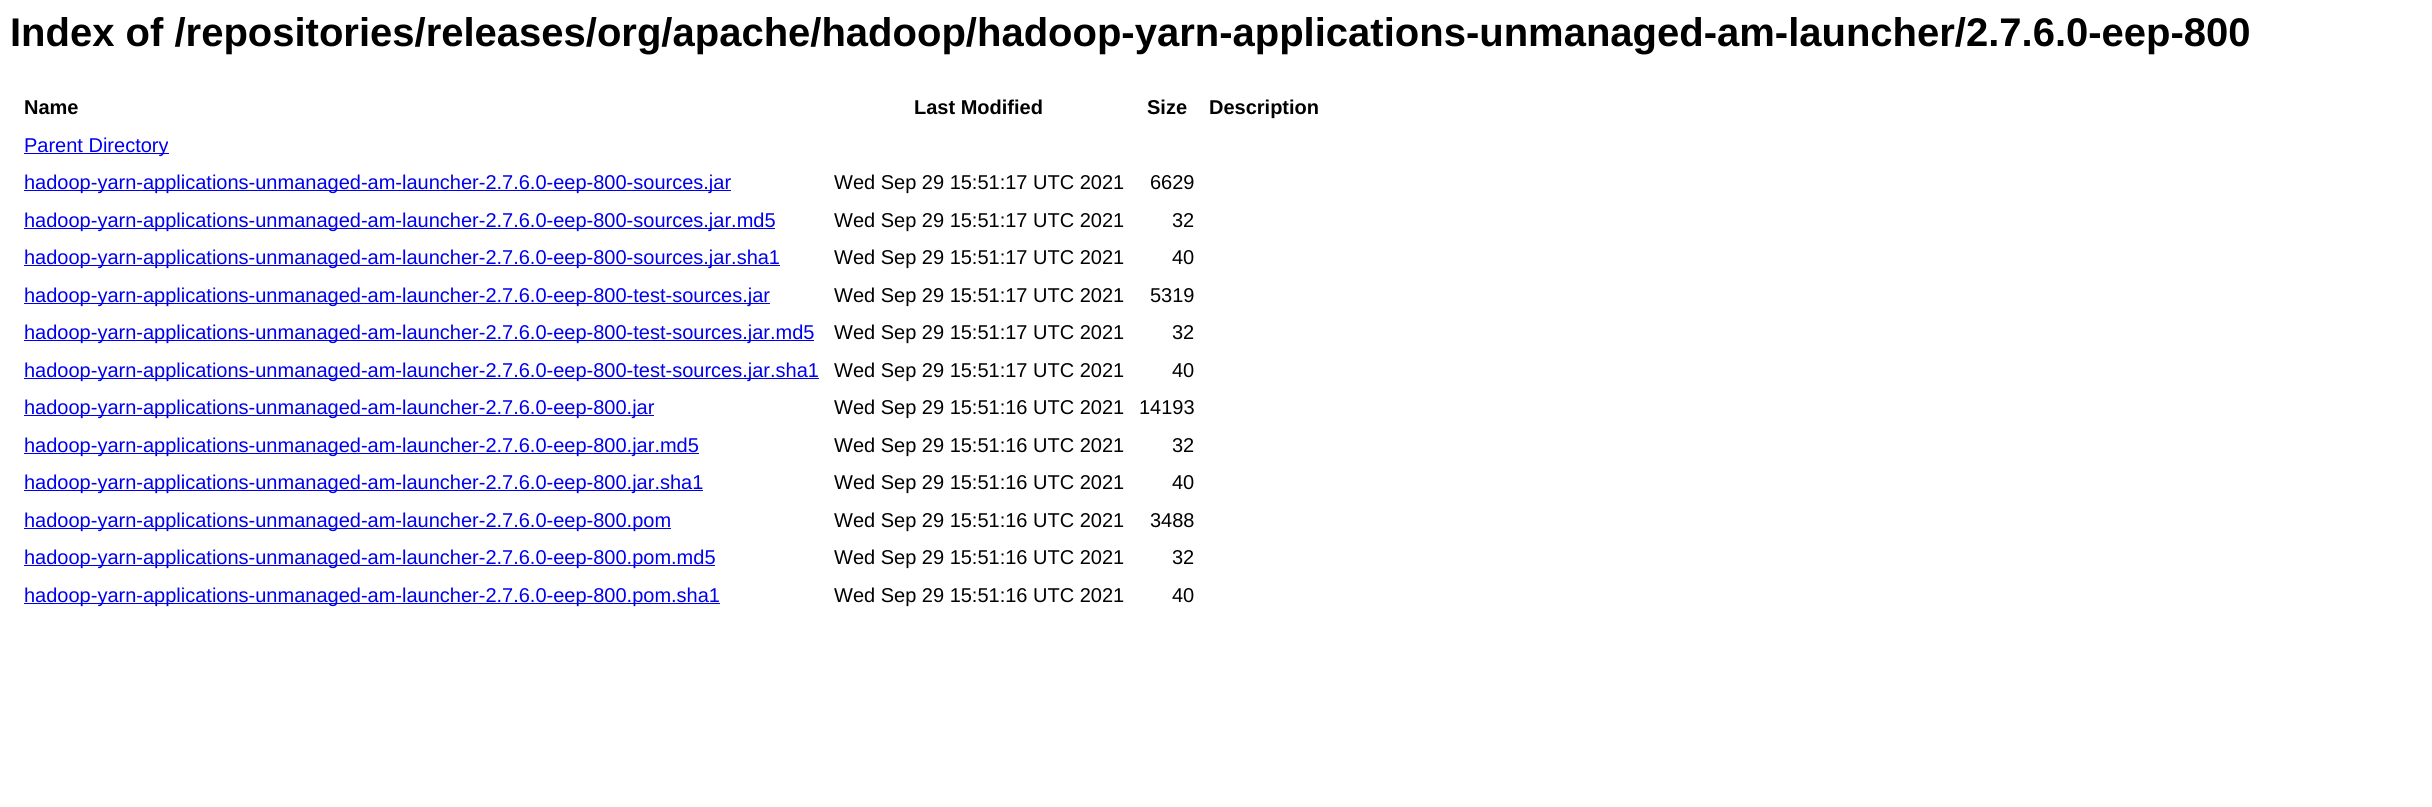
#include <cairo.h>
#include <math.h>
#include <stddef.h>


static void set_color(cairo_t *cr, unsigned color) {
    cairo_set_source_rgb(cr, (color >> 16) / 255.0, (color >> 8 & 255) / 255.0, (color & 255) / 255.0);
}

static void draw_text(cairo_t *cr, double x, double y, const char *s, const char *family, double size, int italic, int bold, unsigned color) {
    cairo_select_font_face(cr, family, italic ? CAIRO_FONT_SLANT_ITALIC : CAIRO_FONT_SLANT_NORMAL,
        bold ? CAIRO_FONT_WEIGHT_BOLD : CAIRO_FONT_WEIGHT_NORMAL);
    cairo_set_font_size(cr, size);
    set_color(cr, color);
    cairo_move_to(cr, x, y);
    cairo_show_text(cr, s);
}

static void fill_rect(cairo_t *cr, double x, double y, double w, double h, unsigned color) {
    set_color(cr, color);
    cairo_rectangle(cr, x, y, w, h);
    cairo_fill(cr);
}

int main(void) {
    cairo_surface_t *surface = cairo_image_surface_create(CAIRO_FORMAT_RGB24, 2432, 807);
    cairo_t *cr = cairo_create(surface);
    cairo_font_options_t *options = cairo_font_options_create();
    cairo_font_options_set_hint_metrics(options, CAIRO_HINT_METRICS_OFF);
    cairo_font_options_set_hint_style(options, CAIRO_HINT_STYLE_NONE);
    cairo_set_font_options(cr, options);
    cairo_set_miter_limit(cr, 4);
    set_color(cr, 0xFFFFFF);
    cairo_paint(cr);
    draw_text(cr, 10, 46, "Index of /repositories/releases/org/apache/hadoop/hadoop-yarn-applications-unmanaged-am-launcher/2.7.6.0-eep-800", "Liberation Sans", 40, 0, 1, 0x000000);
    draw_text(cr, 24, 114, "Name", "Liberation Sans", 20, 0, 1, 0x000000);
    draw_text(cr, 914, 114, "Last Modified", "Liberation Sans", 20, 0, 1, 0x000000);
    draw_text(cr, 1147, 114, "Size", "Liberation Sans", 20, 0, 1, 0x000000);
    draw_text(cr, 1209, 114, "Description", "Liberation Sans", 20, 0, 1, 0x000000);
    fill_rect(cr, 24, 153, 145, 1, 0x0000EE);
    draw_text(cr, 24, 152, "Parent Directory", "Liberation Sans", 20, 0, 0, 0x0000EE);
    fill_rect(cr, 24, 190, 707, 1, 0x0000EE);
    draw_text(cr, 24, 189, "hadoop-yarn-applications-unmanaged-am-launcher-2.7.6.0-eep-800-sources.jar", "Liberation Sans", 20, 0, 0, 0x0000EE);
    draw_text(cr, 834, 189, "Wed Sep 29 15:51:17 UTC 2021", "Liberation Sans", 20, 0, 0, 0x000000);
    draw_text(cr, 1150, 189, "6629", "Liberation Sans", 20, 0, 0, 0x000000);
    fill_rect(cr, 24, 228, 751, 1, 0x0000EE);
    draw_text(cr, 24, 227, "hadoop-yarn-applications-unmanaged-am-launcher-2.7.6.0-eep-800-sources.jar.md5", "Liberation Sans", 20, 0, 0, 0x0000EE);
    draw_text(cr, 834, 227, "Wed Sep 29 15:51:17 UTC 2021", "Liberation Sans", 20, 0, 0, 0x000000);
    draw_text(cr, 1172, 227, "32", "Liberation Sans", 20, 0, 0, 0x000000);
    fill_rect(cr, 24, 265, 756, 1, 0x0000EE);
    draw_text(cr, 24, 264, "hadoop-yarn-applications-unmanaged-am-launcher-2.7.6.0-eep-800-sources.jar.sha1", "Liberation Sans", 20, 0, 0, 0x0000EE);
    draw_text(cr, 834, 264, "Wed Sep 29 15:51:17 UTC 2021", "Liberation Sans", 20, 0, 0, 0x000000);
    draw_text(cr, 1172, 264, "40", "Liberation Sans", 20, 0, 0, 0x000000);
    fill_rect(cr, 24, 303, 746, 1, 0x0000EE);
    draw_text(cr, 24, 302, "hadoop-yarn-applications-unmanaged-am-launcher-2.7.6.0-eep-800-test-sources.jar", "Liberation Sans", 20, 0, 0, 0x0000EE);
    draw_text(cr, 834, 302, "Wed Sep 29 15:51:17 UTC 2021", "Liberation Sans", 20, 0, 0, 0x000000);
    draw_text(cr, 1150, 302, "5319", "Liberation Sans", 20, 0, 0, 0x000000);
    fill_rect(cr, 24, 340, 790, 1, 0x0000EE);
    draw_text(cr, 24, 339, "hadoop-yarn-applications-unmanaged-am-launcher-2.7.6.0-eep-800-test-sources.jar.md5", "Liberation Sans", 20, 0, 0, 0x0000EE);
    draw_text(cr, 834, 339, "Wed Sep 29 15:51:17 UTC 2021", "Liberation Sans", 20, 0, 0, 0x000000);
    draw_text(cr, 1172, 339, "32", "Liberation Sans", 20, 0, 0, 0x000000);
    fill_rect(cr, 24, 378, 795, 1, 0x0000EE);
    draw_text(cr, 24, 377, "hadoop-yarn-applications-unmanaged-am-launcher-2.7.6.0-eep-800-test-sources.jar.sha1", "Liberation Sans", 20, 0, 0, 0x0000EE);
    draw_text(cr, 834, 377, "Wed Sep 29 15:51:17 UTC 2021", "Liberation Sans", 20, 0, 0, 0x000000);
    draw_text(cr, 1172, 377, "40", "Liberation Sans", 20, 0, 0, 0x000000);
    fill_rect(cr, 24, 415, 630, 1, 0x0000EE);
    draw_text(cr, 24, 414, "hadoop-yarn-applications-unmanaged-am-launcher-2.7.6.0-eep-800.jar", "Liberation Sans", 20, 0, 0, 0x0000EE);
    draw_text(cr, 834, 414, "Wed Sep 29 15:51:16 UTC 2021", "Liberation Sans", 20, 0, 0, 0x000000);
    draw_text(cr, 1139, 414, "14193", "Liberation Sans", 20, 0, 0, 0x000000);
    fill_rect(cr, 24, 453, 675, 1, 0x0000EE);
    draw_text(cr, 24, 452, "hadoop-yarn-applications-unmanaged-am-launcher-2.7.6.0-eep-800.jar.md5", "Liberation Sans", 20, 0, 0, 0x0000EE);
    draw_text(cr, 834, 452, "Wed Sep 29 15:51:16 UTC 2021", "Liberation Sans", 20, 0, 0, 0x000000);
    draw_text(cr, 1172, 452, "32", "Liberation Sans", 20, 0, 0, 0x000000);
    fill_rect(cr, 24, 490, 679, 1, 0x0000EE);
    draw_text(cr, 24, 489, "hadoop-yarn-applications-unmanaged-am-launcher-2.7.6.0-eep-800.jar.sha1", "Liberation Sans", 20, 0, 0, 0x0000EE);
    draw_text(cr, 834, 489, "Wed Sep 29 15:51:16 UTC 2021", "Liberation Sans", 20, 0, 0, 0x000000);
    draw_text(cr, 1172, 489, "40", "Liberation Sans", 20, 0, 0, 0x000000);
    fill_rect(cr, 24, 528, 647, 1, 0x0000EE);
    draw_text(cr, 24, 527, "hadoop-yarn-applications-unmanaged-am-launcher-2.7.6.0-eep-800.pom", "Liberation Sans", 20, 0, 0, 0x0000EE);
    draw_text(cr, 834, 527, "Wed Sep 29 15:51:16 UTC 2021", "Liberation Sans", 20, 0, 0, 0x000000);
    draw_text(cr, 1150, 527, "3488", "Liberation Sans", 20, 0, 0, 0x000000);
    fill_rect(cr, 24, 565, 691, 1, 0x0000EE);
    draw_text(cr, 24, 564, "hadoop-yarn-applications-unmanaged-am-launcher-2.7.6.0-eep-800.pom.md5", "Liberation Sans", 20, 0, 0, 0x0000EE);
    draw_text(cr, 834, 564, "Wed Sep 29 15:51:16 UTC 2021", "Liberation Sans", 20, 0, 0, 0x000000);
    draw_text(cr, 1172, 564, "32", "Liberation Sans", 20, 0, 0, 0x000000);
    fill_rect(cr, 24, 603, 696, 1, 0x0000EE);
    draw_text(cr, 24, 602, "hadoop-yarn-applications-unmanaged-am-launcher-2.7.6.0-eep-800.pom.sha1", "Liberation Sans", 20, 0, 0, 0x0000EE);
    draw_text(cr, 834, 602, "Wed Sep 29 15:51:16 UTC 2021", "Liberation Sans", 20, 0, 0, 0x000000);
    draw_text(cr, 1172, 602, "40", "Liberation Sans", 20, 0, 0, 0x000000);
    cairo_surface_write_to_png(surface, "output.png");
    cairo_font_options_destroy(options);
    cairo_destroy(cr);
    cairo_surface_destroy(surface);
    return 0;
}
